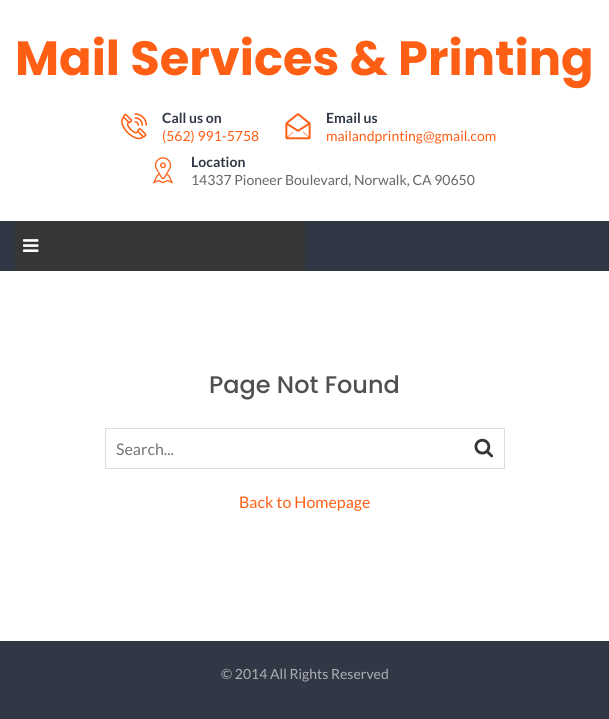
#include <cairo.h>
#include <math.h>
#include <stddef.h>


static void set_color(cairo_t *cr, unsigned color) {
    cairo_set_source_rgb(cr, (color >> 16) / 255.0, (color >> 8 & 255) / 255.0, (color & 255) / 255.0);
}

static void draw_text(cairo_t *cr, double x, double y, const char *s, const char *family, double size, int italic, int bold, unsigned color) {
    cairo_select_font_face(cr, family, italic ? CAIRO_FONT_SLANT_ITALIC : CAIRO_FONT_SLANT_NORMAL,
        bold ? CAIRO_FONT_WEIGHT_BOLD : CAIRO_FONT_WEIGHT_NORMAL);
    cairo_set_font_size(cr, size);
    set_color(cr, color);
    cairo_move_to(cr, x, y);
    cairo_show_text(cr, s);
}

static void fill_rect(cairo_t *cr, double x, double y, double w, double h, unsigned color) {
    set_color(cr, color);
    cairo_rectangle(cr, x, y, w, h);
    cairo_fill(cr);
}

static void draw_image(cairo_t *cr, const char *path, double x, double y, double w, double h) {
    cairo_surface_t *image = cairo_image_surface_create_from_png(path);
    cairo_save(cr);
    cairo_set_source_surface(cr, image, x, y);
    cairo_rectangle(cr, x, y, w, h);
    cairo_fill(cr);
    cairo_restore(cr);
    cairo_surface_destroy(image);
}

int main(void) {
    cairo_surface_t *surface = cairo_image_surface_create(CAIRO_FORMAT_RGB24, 609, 719);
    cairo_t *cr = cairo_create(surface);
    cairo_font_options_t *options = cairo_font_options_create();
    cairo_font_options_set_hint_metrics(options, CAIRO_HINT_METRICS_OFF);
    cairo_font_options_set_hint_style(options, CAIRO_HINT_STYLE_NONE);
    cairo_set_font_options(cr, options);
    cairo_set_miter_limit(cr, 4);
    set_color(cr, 0xFFFFFF);
    cairo_paint(cr);
    draw_text(cr, 15, 75, "Mail Services & Printing", "Poppins", 48, 0, 1, 0xFF5F15);
    draw_image(cr, "assets/img1.png", 121, 113, 26, 27);
    draw_text(cr, 162, 123, "Call us on", "Lato", 14, 0, 1, 0x303745);
    draw_text(cr, 162, 141, "(562) 991-5758", "Lato", 14, 0, 0, 0xFF5F15);
    draw_image(cr, "assets/img2.png", 285, 113, 26, 27);
    draw_text(cr, 326, 123, "Email us", "Lato", 14, 0, 1, 0x303745);
    draw_text(cr, 326, 141, "mailandprinting@gmail.com", "Lato", 14, 0, 0, 0xFF5F15);
    draw_image(cr, "assets/img3.png", 153, 157, 20, 27);
    draw_text(cr, 191, 167, "Location", "Lato", 14, 0, 1, 0x303745);
    draw_text(cr, 191, 185, "14337 Pioneer Boulevard, Norwalk, CA 90650", "Lato", 14, 0, 0, 0x666666);
    fill_rect(cr, 0, 221, 609, 50, 0x303745);
    fill_rect(cr, 15, 221, 290, 50, 0x363636);
    draw_image(cr, "assets/img4.png", 23, 239, 16, 13);
    draw_text(cr, 209, 393, "Page Not Found", "Poppins Medium", 24, 0, 0, 0x505050);
    cairo_rectangle(cr, 105.5, 428.5, 399, 40);
    set_color(cr, 0xDDDDDD);
    cairo_set_line_width(cr, 1);
    cairo_stroke(cr);
    draw_text(cr, 116, 455, "Search...", "Lato", 16, 0, 0, 0x757575);
    draw_image(cr, "assets/img5.png", 474, 438, 19, 20);
    draw_text(cr, 239, 508, "Back to Homepage", "Lato", 16, 0, 0, 0xFF5F15);
    fill_rect(cr, 0, 641, 609, 78, 0x303745);
    draw_text(cr, 221, 679, "© 2014 All Rights Reserved", "Lato", 14, 0, 0, 0xAFB0B2);
    cairo_surface_write_to_png(surface, "output.png");
    cairo_font_options_destroy(options);
    cairo_destroy(cr);
    cairo_surface_destroy(surface);
    return 0;
}
